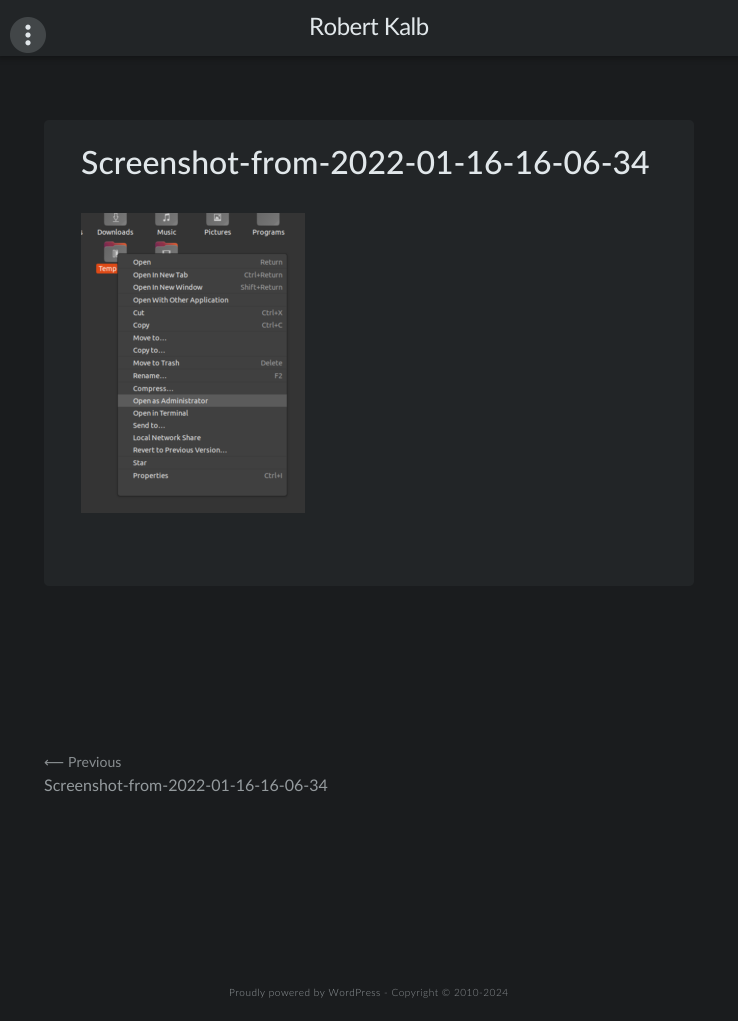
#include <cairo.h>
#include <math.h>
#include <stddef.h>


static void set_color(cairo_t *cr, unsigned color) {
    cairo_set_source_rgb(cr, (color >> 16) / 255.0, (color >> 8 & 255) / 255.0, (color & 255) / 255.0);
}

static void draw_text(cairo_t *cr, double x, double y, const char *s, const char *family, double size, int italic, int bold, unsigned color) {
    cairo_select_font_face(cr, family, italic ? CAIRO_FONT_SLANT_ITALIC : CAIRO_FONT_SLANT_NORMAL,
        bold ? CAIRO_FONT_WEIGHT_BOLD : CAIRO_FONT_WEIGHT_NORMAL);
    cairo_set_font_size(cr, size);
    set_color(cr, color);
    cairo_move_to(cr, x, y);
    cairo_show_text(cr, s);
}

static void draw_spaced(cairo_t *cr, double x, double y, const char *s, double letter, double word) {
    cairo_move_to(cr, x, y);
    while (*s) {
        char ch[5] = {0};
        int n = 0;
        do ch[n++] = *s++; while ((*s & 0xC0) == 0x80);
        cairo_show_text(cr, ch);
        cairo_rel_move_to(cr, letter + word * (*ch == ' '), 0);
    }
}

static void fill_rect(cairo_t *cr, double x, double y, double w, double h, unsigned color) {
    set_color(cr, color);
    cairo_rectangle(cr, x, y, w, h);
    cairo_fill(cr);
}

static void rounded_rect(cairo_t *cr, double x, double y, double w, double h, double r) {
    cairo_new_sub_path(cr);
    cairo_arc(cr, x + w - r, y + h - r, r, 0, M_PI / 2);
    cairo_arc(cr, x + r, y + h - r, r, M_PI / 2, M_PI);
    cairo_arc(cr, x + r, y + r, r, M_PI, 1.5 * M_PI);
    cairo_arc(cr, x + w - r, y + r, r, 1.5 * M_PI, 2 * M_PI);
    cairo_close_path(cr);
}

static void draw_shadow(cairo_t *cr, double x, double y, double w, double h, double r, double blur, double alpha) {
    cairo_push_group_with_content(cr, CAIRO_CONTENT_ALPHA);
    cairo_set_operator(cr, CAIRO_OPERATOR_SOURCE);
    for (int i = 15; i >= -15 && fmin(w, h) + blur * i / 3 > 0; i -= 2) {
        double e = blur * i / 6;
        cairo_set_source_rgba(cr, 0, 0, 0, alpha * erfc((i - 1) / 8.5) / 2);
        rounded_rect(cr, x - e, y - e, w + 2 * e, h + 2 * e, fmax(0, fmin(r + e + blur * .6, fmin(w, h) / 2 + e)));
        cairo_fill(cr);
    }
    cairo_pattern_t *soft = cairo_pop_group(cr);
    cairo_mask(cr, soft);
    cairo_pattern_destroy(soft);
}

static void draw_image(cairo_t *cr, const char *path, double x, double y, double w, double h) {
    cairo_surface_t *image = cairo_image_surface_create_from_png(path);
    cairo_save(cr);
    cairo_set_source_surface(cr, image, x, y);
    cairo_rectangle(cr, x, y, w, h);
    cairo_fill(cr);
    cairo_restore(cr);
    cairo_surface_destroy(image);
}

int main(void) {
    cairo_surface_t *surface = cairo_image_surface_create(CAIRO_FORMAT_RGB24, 738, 1021);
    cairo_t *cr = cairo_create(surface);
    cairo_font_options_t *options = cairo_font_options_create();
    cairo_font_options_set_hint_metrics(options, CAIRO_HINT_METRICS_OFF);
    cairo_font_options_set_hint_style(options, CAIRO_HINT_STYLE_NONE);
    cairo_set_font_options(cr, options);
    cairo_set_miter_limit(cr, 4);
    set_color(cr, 0x1A1C1E);
    cairo_paint(cr);
    set_color(cr, 0x000000);
    draw_shadow(cr, 0, 0, 738, 56, 0, 5, 0.5);
    fill_rect(cr, 0, 0, 738, 56, 0x222527);
    set_color(cr, 0x424648);
    cairo_arc(cr, 28, 35, 18, 0, 2 * M_PI);
    cairo_fill(cr);
    draw_image(cr, "assets/img1.png", 25, 24, 6, 22);
    cairo_select_font_face(cr, "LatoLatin", CAIRO_FONT_SLANT_NORMAL, CAIRO_FONT_WEIGHT_NORMAL);
    cairo_set_font_size(cr, 24);
    set_color(cr, 0xE1E7EA);
    draw_spaced(cr, 309, 35, "Robert Kalb", -0.5, 0);
    set_color(cr, 0x222527);
    rounded_rect(cr, 44, 120, 650, 466, 5);
    cairo_fill(cr);
    draw_text(cr, 81, 174, "Screenshot-from-2022-01-16-16-06-34", "LatoLatin Medium", 32, 0, 0, 0xE1E7EA);
    draw_image(cr, "assets/img2.png", 81, 213, 224, 300);
    draw_text(cr, 44, 767, "⟵", "DejaVu Sans", 14, 0, 0, 0x888D90);
    draw_text(cr, 68, 767, "Previous", "LatoLatin", 14, 0, 0, 0x888D90);
    draw_text(cr, 44, 791, "Screenshot-from-2022-01-16-16-06-34", "LatoLatin", 16, 0, 0, 0x949A9D);
    cairo_select_font_face(cr, "LatoLatin Light", CAIRO_FONT_SLANT_NORMAL, CAIRO_FONT_WEIGHT_NORMAL);
    cairo_set_font_size(cr, 10);
    draw_spaced(cr, 229, 996, "Proudly powered by WordPress", 0.5, 0);
    set_color(cr, 0x888D90);
    draw_spaced(cr, 384, 996, "- Copyright © 2010-2024", 0.5, 0);
    cairo_surface_write_to_png(surface, "output.png");
    cairo_font_options_destroy(options);
    cairo_destroy(cr);
    cairo_surface_destroy(surface);
    return 0;
}
